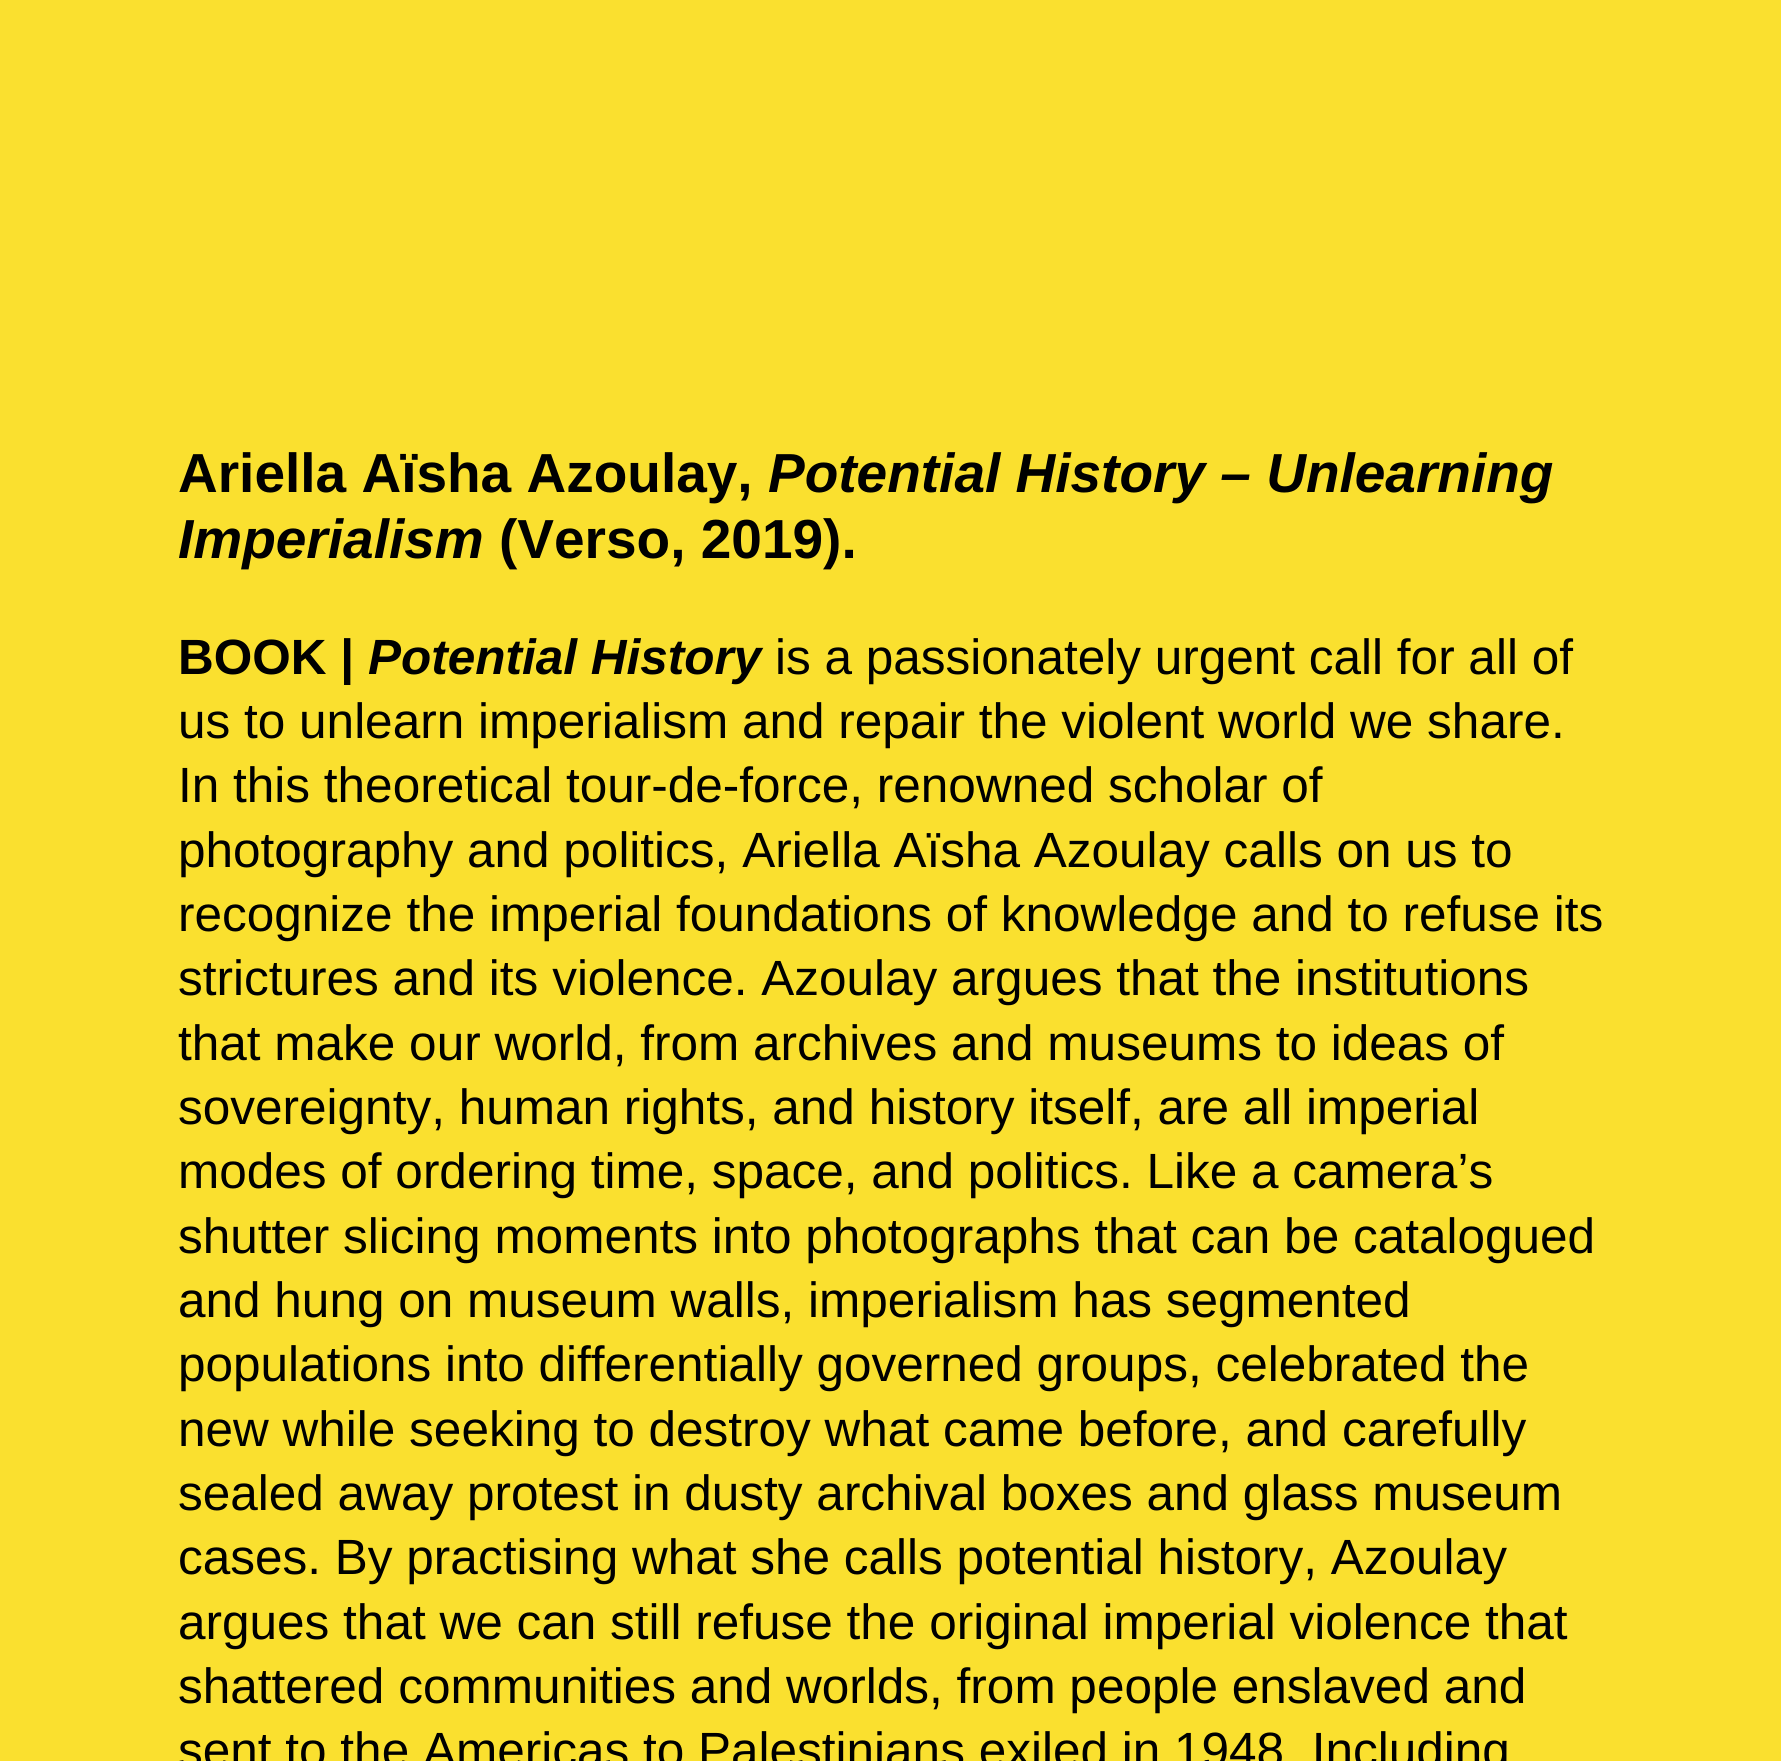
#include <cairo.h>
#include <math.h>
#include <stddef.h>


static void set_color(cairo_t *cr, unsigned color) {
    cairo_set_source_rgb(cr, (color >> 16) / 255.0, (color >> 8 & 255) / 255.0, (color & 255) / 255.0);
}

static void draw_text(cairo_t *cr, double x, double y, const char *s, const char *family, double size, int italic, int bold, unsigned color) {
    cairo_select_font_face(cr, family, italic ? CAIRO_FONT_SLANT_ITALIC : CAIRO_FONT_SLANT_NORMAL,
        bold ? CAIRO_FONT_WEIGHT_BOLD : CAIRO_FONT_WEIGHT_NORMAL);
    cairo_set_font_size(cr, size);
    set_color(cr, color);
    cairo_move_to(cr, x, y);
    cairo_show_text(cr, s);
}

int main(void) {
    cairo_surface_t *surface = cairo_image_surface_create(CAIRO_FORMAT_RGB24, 1781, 1761);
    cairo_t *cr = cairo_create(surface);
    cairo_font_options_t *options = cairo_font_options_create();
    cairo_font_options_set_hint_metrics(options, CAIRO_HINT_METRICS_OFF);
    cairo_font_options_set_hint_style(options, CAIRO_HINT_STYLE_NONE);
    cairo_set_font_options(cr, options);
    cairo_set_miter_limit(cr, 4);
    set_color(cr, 0xFAE02F);
    cairo_paint(cr);
    draw_text(cr, 178, 492, "Ariella Aïsha Azoulay,", "Liberation Sans", 55, 0, 1, 0x000000);
    draw_text(cr, 768, 492, "Potential History – Unlearning", "Liberation Sans", 55, 1, 1, 0x000000);
    draw_text(cr, 178, 558, "Imperialism", "Liberation Sans", 55, 1, 1, 0x000000);
    draw_text(cr, 499, 558, "(Verso, 2019).", "Liberation Sans", 55, 0, 1, 0x000000);
    draw_text(cr, 178, 674, "BOOK |", "Liberation Sans", 49.5, 0, 1, 0x000000);
    draw_text(cr, 368, 674, "Potential History", "Liberation Sans", 49.5, 1, 1, 0x000000);
    draw_text(cr, 775, 674, "is a passionately urgent call for all of", "Liberation Sans", 49.5, 0, 0, 0x000000);
    draw_text(cr, 178, 738, "us to unlearn imperialism and repair the violent world we share.", "Liberation Sans", 49.5, 0, 0, 0x000000);
    draw_text(cr, 178, 802, "In this theoretical tour-de-force, renowned scholar of", "Liberation Sans", 49.5, 0, 0, 0x000000);
    draw_text(cr, 178, 867, "photography and politics, Ariella Aïsha Azoulay calls on us to", "Liberation Sans", 49.5, 0, 0, 0x000000);
    draw_text(cr, 178, 931, "recognize the imperial foundations of knowledge and to refuse its", "Liberation Sans", 49.5, 0, 0, 0x000000);
    draw_text(cr, 178, 995, "strictures and its violence. Azoulay argues that the institutions", "Liberation Sans", 49.5, 0, 0, 0x000000);
    draw_text(cr, 178, 1060, "that make our world, from archives and museums to ideas of", "Liberation Sans", 49.5, 0, 0, 0x000000);
    draw_text(cr, 178, 1124, "sovereignty, human rights, and history itself, are all imperial", "Liberation Sans", 49.5, 0, 0, 0x000000);
    draw_text(cr, 178, 1188, "modes of ordering time, space, and politics. Like a camera’s", "Liberation Sans", 49.5, 0, 0, 0x000000);
    draw_text(cr, 178, 1253, "shutter slicing moments into photographs that can be catalogued", "Liberation Sans", 49.5, 0, 0, 0x000000);
    draw_text(cr, 178, 1317, "and hung on museum walls, imperialism has segmented", "Liberation Sans", 49.5, 0, 0, 0x000000);
    draw_text(cr, 178, 1381, "populations into differentially governed groups, celebrated the", "Liberation Sans", 49.5, 0, 0, 0x000000);
    draw_text(cr, 178, 1446, "new while seeking to destroy what came before, and carefully", "Liberation Sans", 49.5, 0, 0, 0x000000);
    draw_text(cr, 178, 1510, "sealed away protest in dusty archival boxes and glass museum", "Liberation Sans", 49.5, 0, 0, 0x000000);
    draw_text(cr, 178, 1574, "cases. By practising what she calls potential history, Azoulay", "Liberation Sans", 49.5, 0, 0, 0x000000);
    draw_text(cr, 178, 1639, "argues that we can still refuse the original imperial violence that", "Liberation Sans", 49.5, 0, 0, 0x000000);
    draw_text(cr, 178, 1703, "shattered communities and worlds, from people enslaved and", "Liberation Sans", 49.5, 0, 0, 0x000000);
    draw_text(cr, 178, 1767, "sent to the Americas to Palestinians exiled in 1948. Including", "Liberation Sans", 49.5, 0, 0, 0x000000);
    cairo_surface_write_to_png(surface, "output.png");
    cairo_font_options_destroy(options);
    cairo_destroy(cr);
    cairo_surface_destroy(surface);
    return 0;
}
